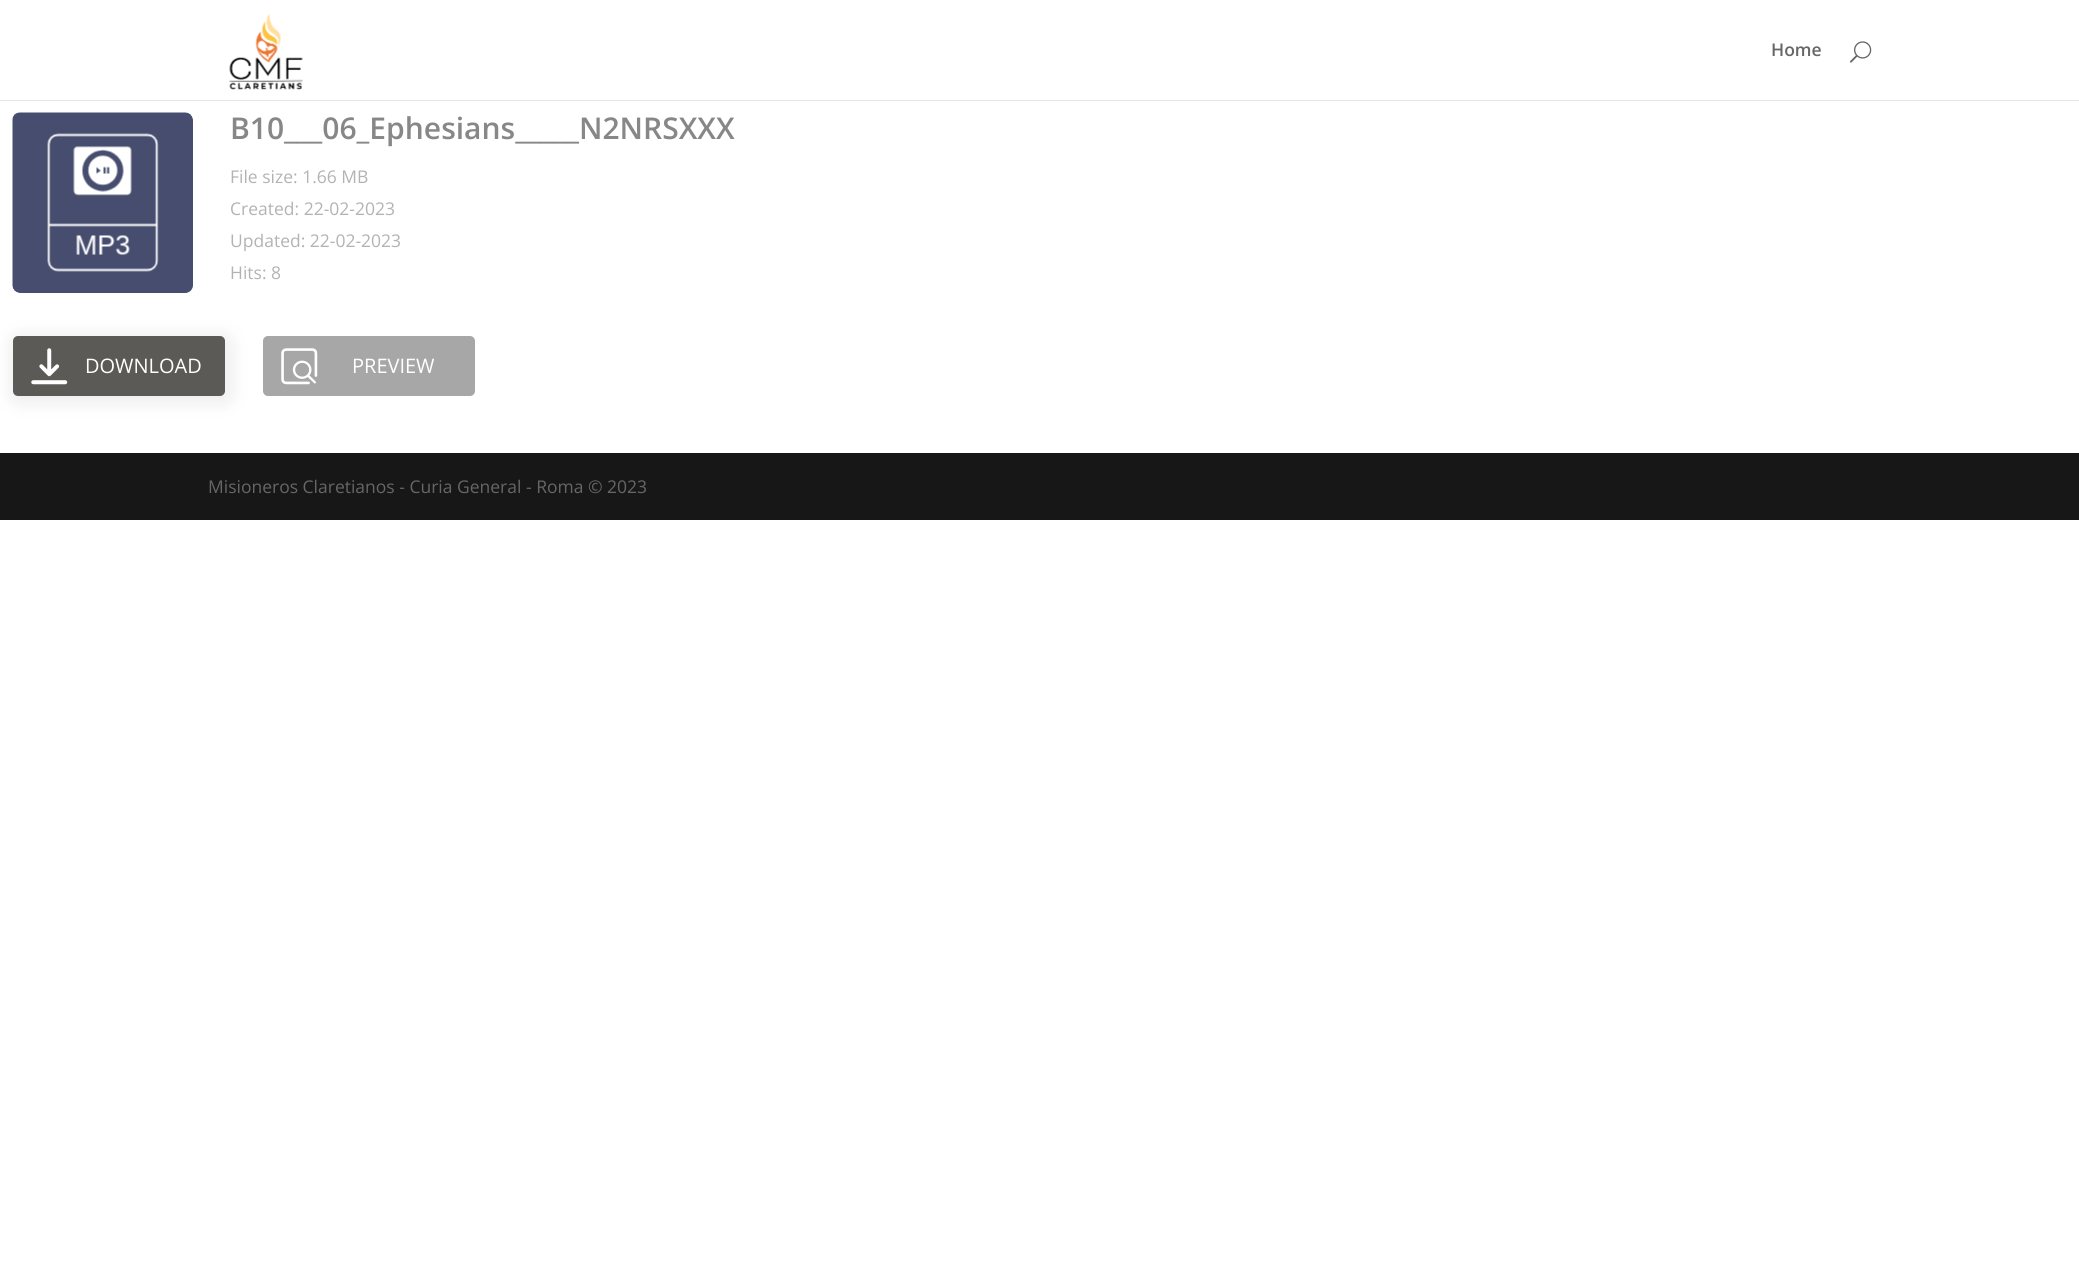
#include <cairo.h>
#include <math.h>
#include <stddef.h>


static void set_color(cairo_t *cr, unsigned color) {
    cairo_set_source_rgb(cr, (color >> 16) / 255.0, (color >> 8 & 255) / 255.0, (color & 255) / 255.0);
}

static void draw_text(cairo_t *cr, double x, double y, const char *s, const char *family, double size, int italic, int bold, unsigned color) {
    cairo_select_font_face(cr, family, italic ? CAIRO_FONT_SLANT_ITALIC : CAIRO_FONT_SLANT_NORMAL,
        bold ? CAIRO_FONT_WEIGHT_BOLD : CAIRO_FONT_WEIGHT_NORMAL);
    cairo_set_font_size(cr, size);
    set_color(cr, color);
    cairo_move_to(cr, x, y);
    cairo_show_text(cr, s);
}

static void fill_rect(cairo_t *cr, double x, double y, double w, double h, unsigned color) {
    set_color(cr, color);
    cairo_rectangle(cr, x, y, w, h);
    cairo_fill(cr);
}

static void rounded_rect(cairo_t *cr, double x, double y, double w, double h, double r) {
    cairo_new_sub_path(cr);
    cairo_arc(cr, x + w - r, y + h - r, r, 0, M_PI / 2);
    cairo_arc(cr, x + r, y + h - r, r, M_PI / 2, M_PI);
    cairo_arc(cr, x + r, y + r, r, M_PI, 1.5 * M_PI);
    cairo_arc(cr, x + w - r, y + r, r, 1.5 * M_PI, 2 * M_PI);
    cairo_close_path(cr);
}

static void draw_shadow(cairo_t *cr, double x, double y, double w, double h, double r, double blur, double alpha) {
    cairo_push_group_with_content(cr, CAIRO_CONTENT_ALPHA);
    cairo_set_operator(cr, CAIRO_OPERATOR_SOURCE);
    for (int i = 15; i >= -15 && fmin(w, h) + blur * i / 3 > 0; i -= 2) {
        double e = blur * i / 6;
        cairo_set_source_rgba(cr, 0, 0, 0, alpha * erfc((i - 1) / 8.5) / 2);
        rounded_rect(cr, x - e, y - e, w + 2 * e, h + 2 * e, fmax(0, fmin(r + e + blur * .6, fmin(w, h) / 2 + e)));
        cairo_fill(cr);
    }
    cairo_pattern_t *soft = cairo_pop_group(cr);
    cairo_mask(cr, soft);
    cairo_pattern_destroy(soft);
}

static void draw_image(cairo_t *cr, const char *path, double x, double y, double w, double h) {
    cairo_surface_t *image = cairo_image_surface_create_from_png(path);
    cairo_save(cr);
    cairo_set_source_surface(cr, image, x, y);
    cairo_rectangle(cr, x, y, w, h);
    cairo_fill(cr);
    cairo_restore(cr);
    cairo_surface_destroy(image);
}

int main(void) {
    cairo_surface_t *surface = cairo_image_surface_create(CAIRO_FORMAT_RGB24, 2079, 1278);
    cairo_t *cr = cairo_create(surface);
    cairo_font_options_t *options = cairo_font_options_create();
    cairo_font_options_set_hint_metrics(options, CAIRO_HINT_METRICS_OFF);
    cairo_font_options_set_hint_style(options, CAIRO_HINT_STYLE_NONE);
    cairo_set_font_options(cr, options);
    cairo_set_miter_limit(cr, 4);
    set_color(cr, 0xFFFFFF);
    cairo_paint(cr);
    fill_rect(cr, 0, 100, 2079, 1, 0xE6E6E6);
    draw_image(cr, "assets/img1.png", 229, 13, 74, 77);
    draw_text(cr, 1771, 56, "Home", "Open Sans SemiBold", 17.5, 0, 0, 0x666666);
    draw_image(cr, "assets/img2.png", 1850, 41, 22, 22);
    set_color(cr, 0x464D6E);
    rounded_rect(cr, 13, 113, 180, 180, 8);
    cairo_fill(cr);
    draw_image(cr, "assets/img3.png", 12, 112, 181, 181);
    draw_text(cr, 230, 139, "B10___06_Ephesians_____N2NRSXXX", "Open Sans SemiBold", 30, 0, 0, 0x878787);
    draw_text(cr, 230, 183, "File size: 1.66 MB", "Open Sans", 17.5, 0, 0, 0xB3B3B3);
    draw_text(cr, 230, 215, "Created: 22-02-2023", "Open Sans", 17.5, 0, 0, 0xB3B3B3);
    draw_text(cr, 230, 247, "Updated: 22-02-2023", "Open Sans", 17.5, 0, 0, 0xB3B3B3);
    draw_text(cr, 230, 279, "Hits: 8", "Open Sans", 17.5, 0, 0, 0xB3B3B3);
    set_color(cr, 0xF0F0F0);
    draw_shadow(cr, 9, 333, 225, 72, 11, 7.5, 1);
    set_color(cr, 0x5C5A57);
    rounded_rect(cr, 13, 336, 212, 60, 5);
    cairo_fill(cr);
    draw_image(cr, "assets/img4.png", 31, 348, 37, 37);
    draw_text(cr, 85, 373, "DOWNLOAD", "Open Sans", 20, 0, 0, 0xFFFFFF);
    set_color(cr, 0xA7A7A7);
    rounded_rect(cr, 263, 336, 212, 60, 5);
    cairo_fill(cr);
    draw_image(cr, "assets/img5.png", 281, 348, 37, 37);
    draw_text(cr, 352, 373, "PREVIEW", "Open Sans", 20, 0, 0, 0xFFFFFF);
    fill_rect(cr, 0, 453, 2079, 67, 0x171717);
    draw_text(cr, 208, 493, "Misioneros Claretianos - Curia General - Roma © 2023", "Open Sans", 17.5, 0, 0, 0x666666);
    cairo_surface_write_to_png(surface, "output.png");
    cairo_font_options_destroy(options);
    cairo_destroy(cr);
    cairo_surface_destroy(surface);
    return 0;
}
